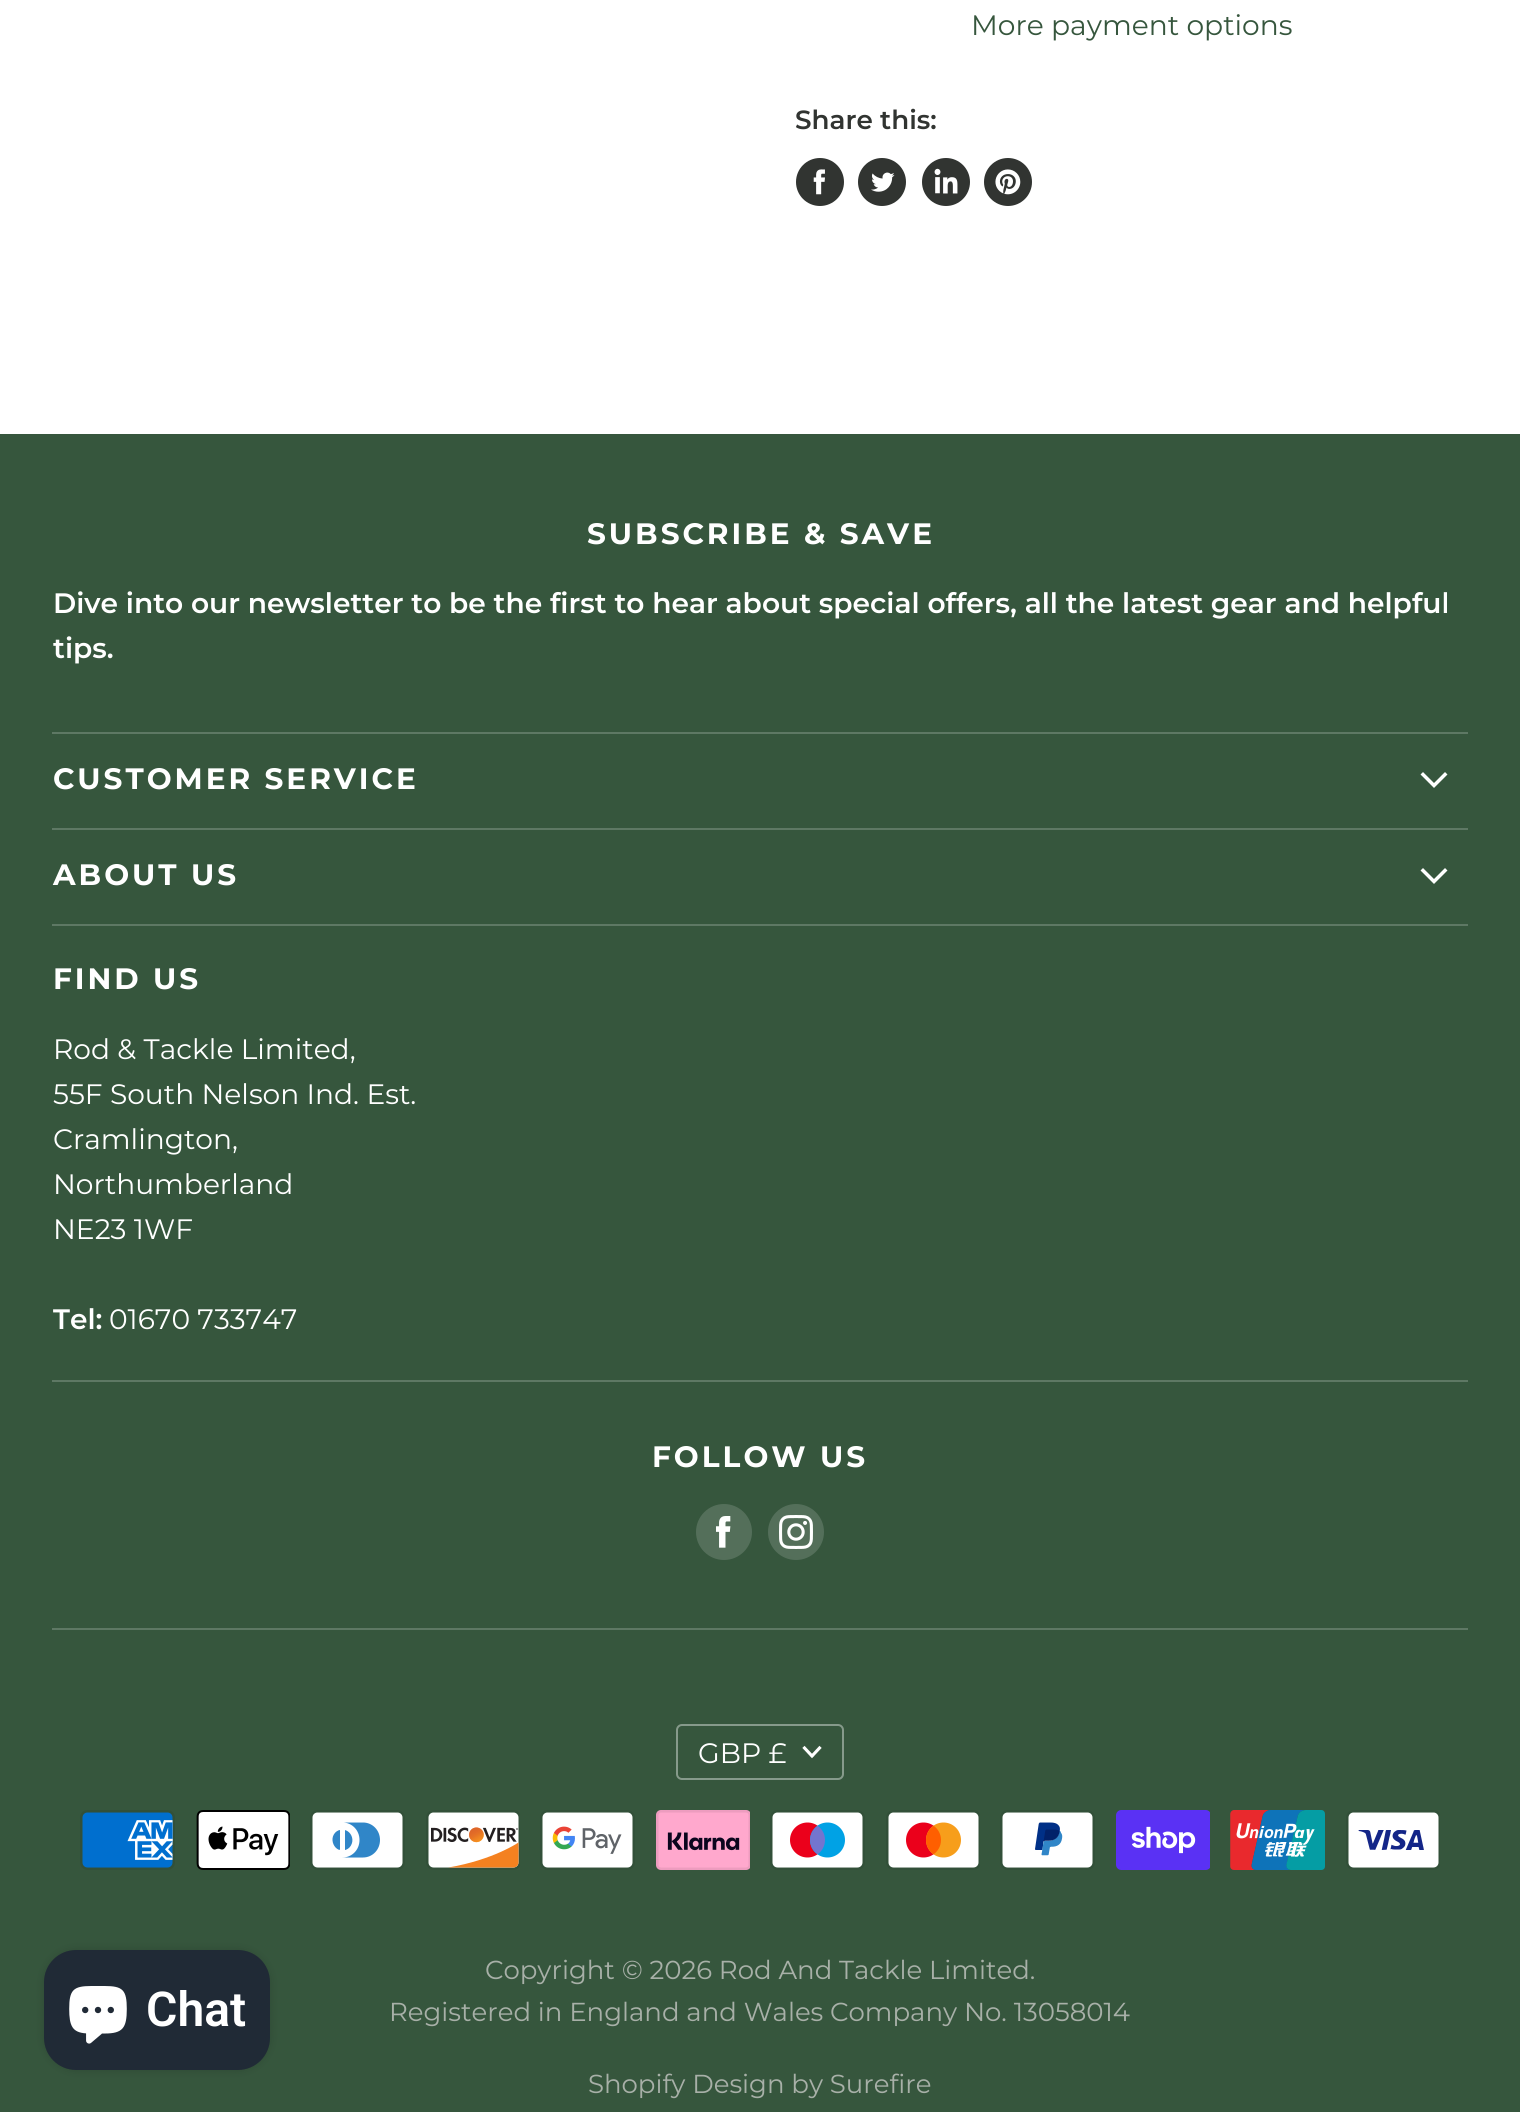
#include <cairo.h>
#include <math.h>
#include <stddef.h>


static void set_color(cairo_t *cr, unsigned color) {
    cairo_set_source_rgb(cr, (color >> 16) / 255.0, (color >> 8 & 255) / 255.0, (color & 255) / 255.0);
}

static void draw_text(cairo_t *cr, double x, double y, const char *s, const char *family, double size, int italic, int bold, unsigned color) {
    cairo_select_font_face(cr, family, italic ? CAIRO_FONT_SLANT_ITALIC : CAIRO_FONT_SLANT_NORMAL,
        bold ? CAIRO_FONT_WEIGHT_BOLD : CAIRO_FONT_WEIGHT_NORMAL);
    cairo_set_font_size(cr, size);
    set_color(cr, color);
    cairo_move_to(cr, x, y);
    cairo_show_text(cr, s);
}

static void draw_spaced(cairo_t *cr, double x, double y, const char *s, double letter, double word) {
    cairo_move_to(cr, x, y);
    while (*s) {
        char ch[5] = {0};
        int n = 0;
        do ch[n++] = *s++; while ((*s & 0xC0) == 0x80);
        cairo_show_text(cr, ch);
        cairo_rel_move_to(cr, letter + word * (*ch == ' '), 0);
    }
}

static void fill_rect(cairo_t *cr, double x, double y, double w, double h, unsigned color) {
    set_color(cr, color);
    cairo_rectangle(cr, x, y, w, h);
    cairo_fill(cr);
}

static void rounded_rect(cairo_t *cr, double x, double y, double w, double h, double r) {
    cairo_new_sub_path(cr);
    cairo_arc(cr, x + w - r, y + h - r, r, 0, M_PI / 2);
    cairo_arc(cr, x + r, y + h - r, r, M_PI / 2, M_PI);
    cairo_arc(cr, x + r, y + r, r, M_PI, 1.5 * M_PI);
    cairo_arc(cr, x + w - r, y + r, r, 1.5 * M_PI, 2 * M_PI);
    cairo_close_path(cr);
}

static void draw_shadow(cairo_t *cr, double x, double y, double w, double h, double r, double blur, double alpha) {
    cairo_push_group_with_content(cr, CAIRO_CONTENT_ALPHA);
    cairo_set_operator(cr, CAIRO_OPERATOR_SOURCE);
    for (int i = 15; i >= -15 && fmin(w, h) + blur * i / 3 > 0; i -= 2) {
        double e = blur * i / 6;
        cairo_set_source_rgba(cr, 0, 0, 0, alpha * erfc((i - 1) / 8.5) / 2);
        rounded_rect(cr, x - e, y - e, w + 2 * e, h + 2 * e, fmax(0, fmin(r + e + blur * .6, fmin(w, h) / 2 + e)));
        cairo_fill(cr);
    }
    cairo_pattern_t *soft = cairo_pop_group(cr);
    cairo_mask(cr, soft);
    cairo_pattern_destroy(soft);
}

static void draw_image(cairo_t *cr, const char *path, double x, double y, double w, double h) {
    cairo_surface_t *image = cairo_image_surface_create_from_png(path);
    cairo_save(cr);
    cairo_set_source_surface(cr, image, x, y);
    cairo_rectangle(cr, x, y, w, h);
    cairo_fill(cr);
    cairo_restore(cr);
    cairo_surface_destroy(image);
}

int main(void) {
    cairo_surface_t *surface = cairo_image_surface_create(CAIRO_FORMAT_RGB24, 1520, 2112);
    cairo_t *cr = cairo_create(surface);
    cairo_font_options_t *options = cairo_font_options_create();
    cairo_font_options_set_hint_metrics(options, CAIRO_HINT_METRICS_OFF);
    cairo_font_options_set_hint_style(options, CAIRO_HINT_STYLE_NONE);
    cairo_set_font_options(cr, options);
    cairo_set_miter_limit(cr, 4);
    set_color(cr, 0xFFFFFF);
    cairo_paint(cr);
    draw_text(cr, 971, 35, "More payment options", "Montserrat", 28.1, 0, 0, 0x36563D);
    draw_text(cr, 795, 129, "Share this:", "Montserrat SemiBold", 26.25, 0, 0, 0x313431);
    cairo_new_path(cr);
    cairo_arc(cr, 820, 182, 24, 0, 2 * M_PI);
    cairo_fill(cr);
    draw_image(cr, "assets/img1.png", 813, 169, 12, 26);
    cairo_arc(cr, 882, 182, 24, 0, 2 * M_PI);
    cairo_fill(cr);
    draw_image(cr, "assets/img2.png", 871, 172, 24, 20);
    cairo_arc(cr, 946, 182, 24, 0, 2 * M_PI);
    cairo_fill(cr);
    draw_image(cr, "assets/img3.png", 934, 168, 24, 26);
    cairo_arc(cr, 1008, 182, 24, 0, 2 * M_PI);
    cairo_fill(cr);
    draw_image(cr, "assets/img4.png", 995, 169, 26, 26);
    fill_rect(cr, 0, 434, 1520, 1678, 0x36563D);
    fill_rect(cr, 52, 732, 1416, 2, 0x5E7864);
    cairo_select_font_face(cr, "Montserrat", CAIRO_FONT_SLANT_NORMAL, CAIRO_FONT_WEIGHT_BOLD);
    cairo_set_font_size(cr, 29.5);
    set_color(cr, 0xFFFFFF);
    draw_spaced(cr, 587, 544, "SUBSCRIBE & SAVE", 3, 0);
    draw_text(cr, 53, 613, "Dive into our newsletter to be the first to hear about special offers, all the latest gear and helpful", "Montserrat SemiBold", 28.1, 0, 0, 0xFFFFFF);
    draw_text(cr, 53, 658, "tips.", "Montserrat SemiBold", 28.1, 0, 0, 0xFFFFFF);
    fill_rect(cr, 52, 828, 1416, 2, 0x5E7864);
    cairo_select_font_face(cr, "Montserrat", CAIRO_FONT_SLANT_NORMAL, CAIRO_FONT_WEIGHT_BOLD);
    cairo_set_font_size(cr, 29.5);
    set_color(cr, 0xFFFFFF);
    draw_spaced(cr, 53, 789, "CUSTOMER SERVICE", 3, 0);
    cairo_new_path(cr);
    cairo_move_to(cr, 1434, 785.5);
    cairo_line_to(cr, 1445, 774.5);
    cairo_move_to(cr, 1434, 785.5);
    cairo_line_to(cr, 1423, 774.5);
    cairo_set_line_width(cr, 3.5);
    cairo_set_line_cap(cr, CAIRO_LINE_CAP_SQUARE);
    cairo_stroke(cr);
    fill_rect(cr, 52, 924, 1416, 2, 0x5E7864);
    set_color(cr, 0xFFFFFF);
    draw_spaced(cr, 53, 885, "ABOUT US", 3, 0);
    cairo_new_path(cr);
    cairo_move_to(cr, 1434, 881.5);
    cairo_line_to(cr, 1445, 870.5);
    cairo_move_to(cr, 1434, 881.5);
    cairo_line_to(cr, 1423, 870.5);
    cairo_stroke(cr);
    fill_rect(cr, 52, 1380, 1416, 2, 0x5E7864);
    set_color(cr, 0xFFFFFF);
    draw_spaced(cr, 53, 989, "FIND US", 3, 0);
    draw_text(cr, 53, 1059, "Rod & Tackle Limited,", "Montserrat", 28.1, 0, 0, 0xFFFFFF);
    draw_text(cr, 53, 1104, "55F South Nelson Ind. Est.", "Montserrat", 28.1, 0, 0, 0xFFFFFF);
    draw_text(cr, 53, 1149, "Cramlington,", "Montserrat", 28.1, 0, 0, 0xFFFFFF);
    draw_text(cr, 53, 1194, "Northumberland", "Montserrat", 28.1, 0, 0, 0xFFFFFF);
    draw_text(cr, 53, 1239, "NE23 1WF", "Montserrat", 28.1, 0, 0, 0xFFFFFF);
    draw_text(cr, 53, 1329, "Tel:", "Montserrat SemiBold", 28.1, 0, 0, 0xFFFFFF);
    draw_text(cr, 109, 1329, "01670 733747", "Montserrat", 28.1, 0, 0, 0xFFFFFF);
    fill_rect(cr, 52, 1628, 1416, 2, 0x5E7864);
    cairo_select_font_face(cr, "Montserrat", CAIRO_FONT_SLANT_NORMAL, CAIRO_FONT_WEIGHT_BOLD);
    cairo_set_font_size(cr, 29.5);
    set_color(cr, 0xFFFFFF);
    draw_spaced(cr, 652, 1467, "FOLLOW US", 3, 0);
    set_color(cr, 0x546F5A);
    cairo_new_path(cr);
    cairo_arc(cr, 724, 1532, 28, 0, 2 * M_PI);
    cairo_fill(cr);
    draw_image(cr, "assets/img5.png", 716, 1516, 15, 32);
    cairo_arc(cr, 796, 1532, 28, 0, 2 * M_PI);
    cairo_fill(cr);
    draw_image(cr, "assets/img6.png", 779, 1515, 34, 34);
    rounded_rect(cr, 677, 1725, 166, 54, 5);
    set_color(cr, 0x869A8B);
    cairo_set_line_width(cr, 2);
    cairo_set_line_cap(cr, CAIRO_LINE_CAP_BUTT);
    cairo_stroke(cr);
    draw_text(cr, 698, 1763, "GBP £", "Montserrat", 28.1, 0, 0, 0xFFFFFF);
    cairo_new_path(cr);
    cairo_move_to(cr, 812, 1756);
    cairo_line_to(cr, 819.5, 1748);
    cairo_move_to(cr, 812, 1756);
    cairo_line_to(cr, 804.5, 1748);
    cairo_set_line_width(cr, 3.1);
    cairo_set_line_cap(cr, CAIRO_LINE_CAP_SQUARE);
    cairo_stroke(cr);
    draw_image(cr, "assets/img7.png", 80, 1810, 95, 60);
    draw_image(cr, "assets/img8.png", 196, 1810, 94, 60);
    draw_image(cr, "assets/img9.png", 310, 1810, 95, 60);
    draw_image(cr, "assets/img10.png", 426, 1810, 94, 60);
    draw_image(cr, "assets/img11.png", 540, 1810, 95, 60);
    draw_image(cr, "assets/img12.png", 656, 1810, 94, 60);
    draw_image(cr, "assets/img13.png", 770, 1810, 95, 60);
    draw_image(cr, "assets/img14.png", 886, 1810, 94, 60);
    draw_image(cr, "assets/img15.png", 1000, 1810, 95, 60);
    draw_image(cr, "assets/img16.png", 1116, 1810, 94, 60);
    draw_image(cr, "assets/img17.png", 1230, 1810, 95, 60);
    draw_image(cr, "assets/img18.png", 1346, 1810, 94, 60);
    draw_text(cr, 485, 1979, "Copyright © 2026 Rod And Tackle Limited.", "Montserrat", 26, 0, 0, 0xA8B0A8);
    draw_text(cr, 389, 2021, "Registered in England and Wales Company No. 13058014", "Montserrat", 26, 0, 0, 0xA8B0A8);
    draw_text(cr, 588, 2093, "Shopify Design by Surefire", "Montserrat", 26, 0, 0, 0xA8B0A8);
    set_color(cr, 0x000000);
    draw_shadow(cr, 44, 1950, 226, 120, 32, 5, 0.15);
    set_color(cr, 0x202A36);
    rounded_rect(cr, 44, 1950, 226, 120, 32);
    cairo_fill(cr);
    draw_image(cr, "assets/img19.png", 69, 1986, 58, 58);
    draw_text(cr, 146, 2026, "Chat", "Roboto SemiBold", 48, 0, 0, 0xFFFFFF);
    cairo_surface_write_to_png(surface, "output.png");
    cairo_font_options_destroy(options);
    cairo_destroy(cr);
    cairo_surface_destroy(surface);
    return 0;
}
